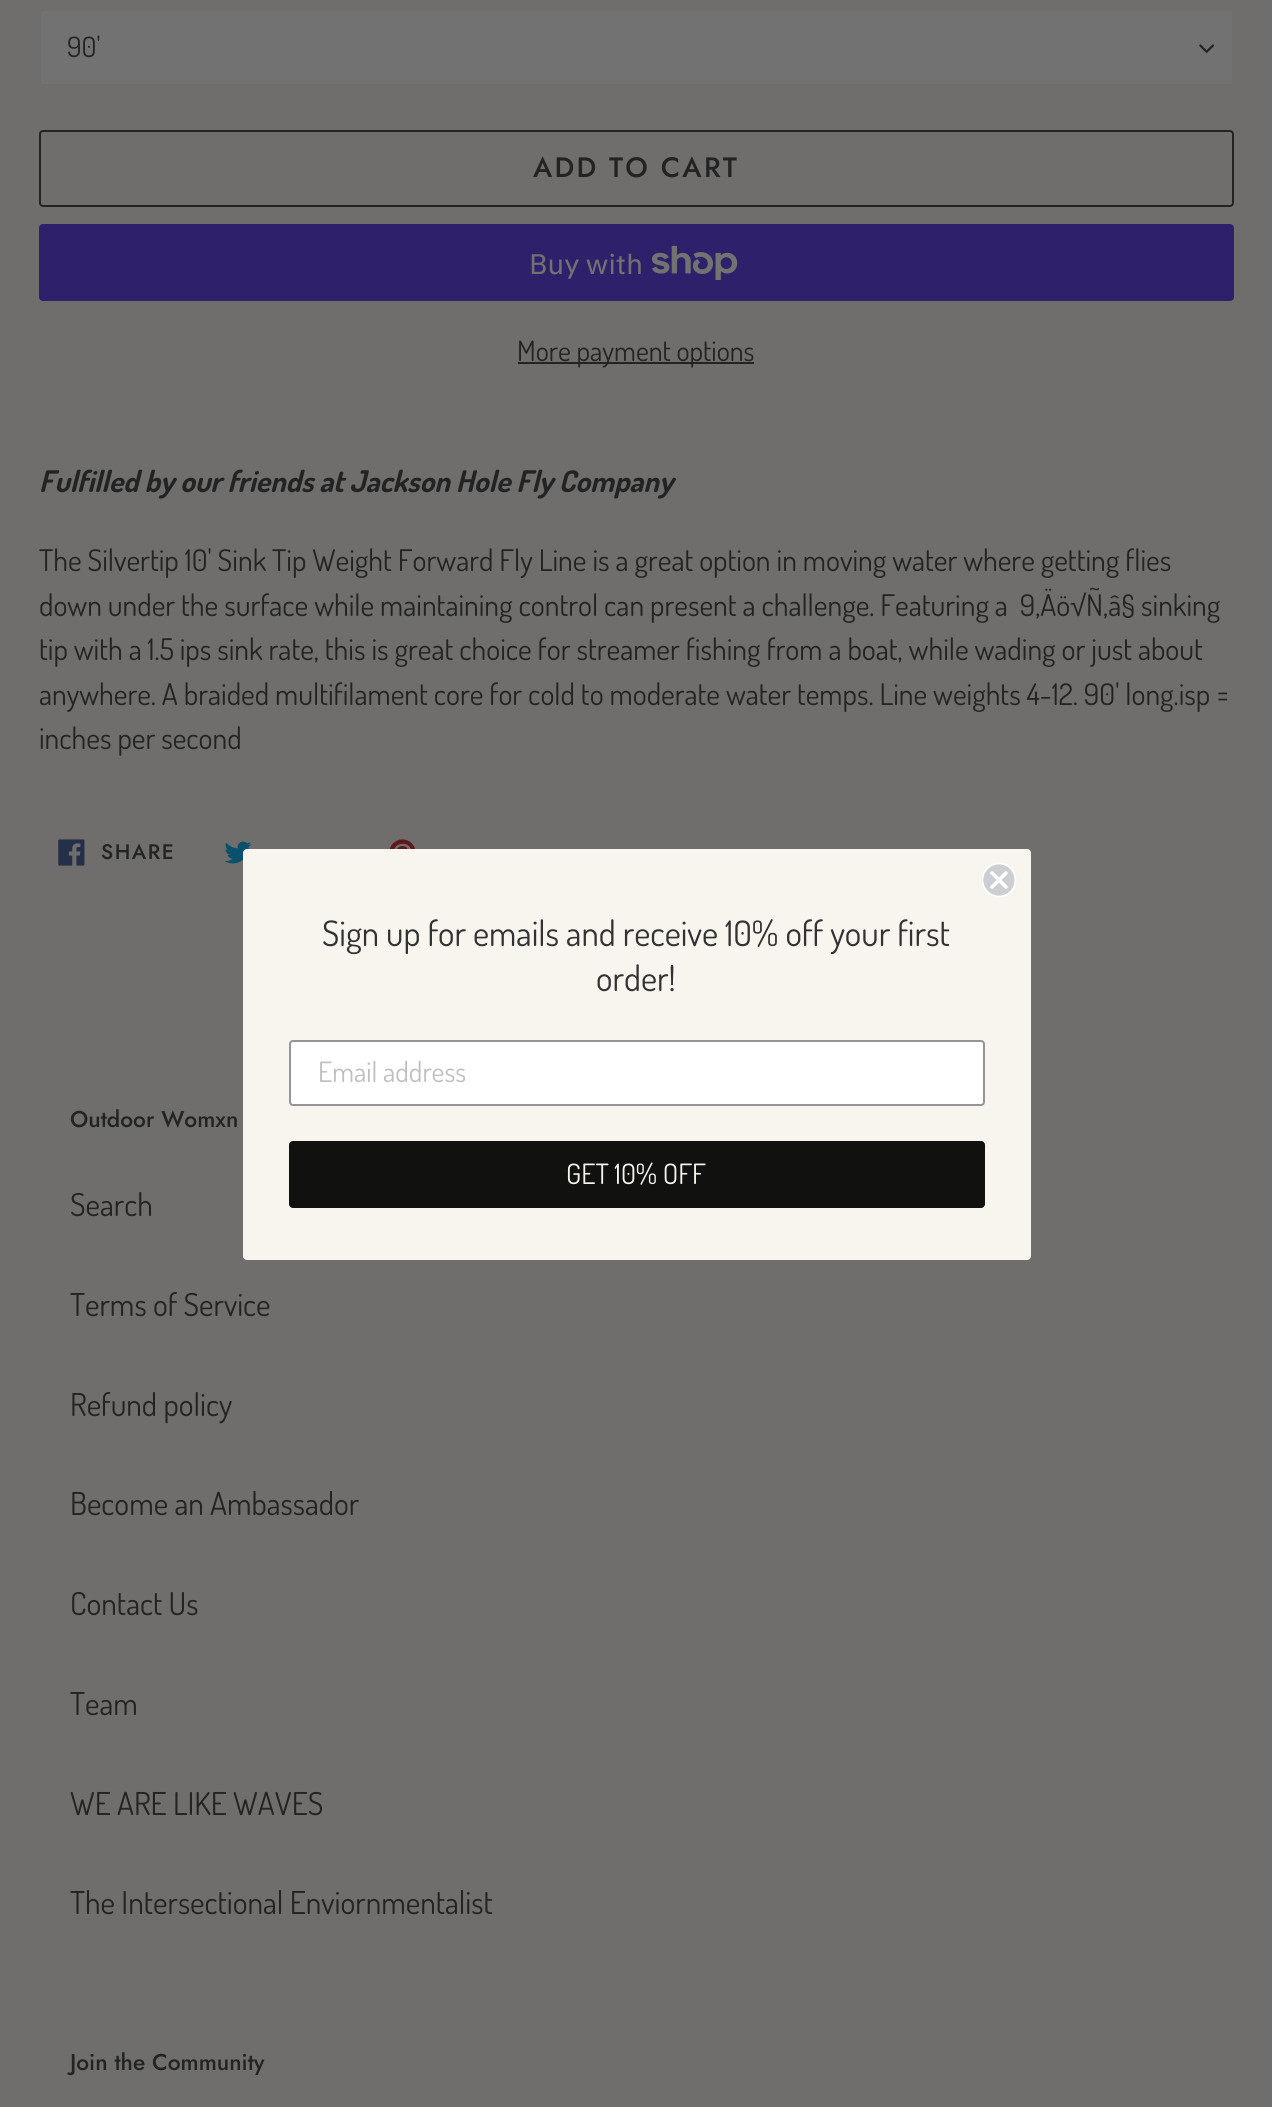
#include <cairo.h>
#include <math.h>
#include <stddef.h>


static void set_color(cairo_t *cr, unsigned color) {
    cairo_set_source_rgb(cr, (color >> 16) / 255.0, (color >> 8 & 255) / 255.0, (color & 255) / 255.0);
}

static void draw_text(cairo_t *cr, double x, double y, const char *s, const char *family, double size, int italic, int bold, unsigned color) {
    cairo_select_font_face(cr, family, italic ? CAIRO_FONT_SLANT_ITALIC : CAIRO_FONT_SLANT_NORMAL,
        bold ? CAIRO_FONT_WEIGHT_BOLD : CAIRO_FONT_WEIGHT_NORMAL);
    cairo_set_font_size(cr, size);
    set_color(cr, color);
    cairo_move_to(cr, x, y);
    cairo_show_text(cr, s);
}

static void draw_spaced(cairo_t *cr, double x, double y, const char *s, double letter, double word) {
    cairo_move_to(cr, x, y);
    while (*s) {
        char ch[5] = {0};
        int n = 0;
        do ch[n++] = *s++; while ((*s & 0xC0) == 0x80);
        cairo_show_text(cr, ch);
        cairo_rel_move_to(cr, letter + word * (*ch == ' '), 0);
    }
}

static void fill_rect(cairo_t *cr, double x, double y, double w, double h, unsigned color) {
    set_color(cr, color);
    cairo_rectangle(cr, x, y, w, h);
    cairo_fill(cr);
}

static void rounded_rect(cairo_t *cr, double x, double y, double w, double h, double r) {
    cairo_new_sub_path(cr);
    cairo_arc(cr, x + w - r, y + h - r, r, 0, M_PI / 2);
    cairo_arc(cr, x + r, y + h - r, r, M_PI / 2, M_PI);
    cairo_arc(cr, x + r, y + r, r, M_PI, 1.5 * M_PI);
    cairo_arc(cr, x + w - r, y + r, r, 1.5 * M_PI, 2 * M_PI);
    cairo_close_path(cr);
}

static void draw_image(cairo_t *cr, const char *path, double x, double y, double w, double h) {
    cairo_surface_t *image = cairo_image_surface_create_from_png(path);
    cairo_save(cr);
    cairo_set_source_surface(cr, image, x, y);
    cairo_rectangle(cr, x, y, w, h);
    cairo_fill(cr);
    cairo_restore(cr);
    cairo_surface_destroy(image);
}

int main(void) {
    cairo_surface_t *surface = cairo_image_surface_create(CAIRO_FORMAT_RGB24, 1272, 2107);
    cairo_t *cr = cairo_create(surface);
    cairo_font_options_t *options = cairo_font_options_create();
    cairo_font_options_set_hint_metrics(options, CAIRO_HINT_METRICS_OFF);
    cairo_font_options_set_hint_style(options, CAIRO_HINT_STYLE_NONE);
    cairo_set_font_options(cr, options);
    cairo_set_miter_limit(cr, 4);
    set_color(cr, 0x6F6E6C);
    cairo_paint(cr);
    set_color(cr, 0x727272);
    rounded_rect(cr, 39, 9, 1195, 77, 4);
    cairo_fill(cr);
    draw_image(cr, "assets/img1.png", 1199, 44, 15, 9);
    rounded_rect(cr, 40, 10, 1193, 75, 3);
    set_color(cr, 0x6F6E6C);
    cairo_stroke(cr);
    draw_text(cr, 67, 57, "90'", "Dosis", 28, 0, 0, 0x232323);
    rounded_rect(cr, 40, 131, 1193, 75, 3);
    cairo_stroke(cr);
    cairo_select_font_face(cr, "Jost Medium", CAIRO_FONT_SLANT_NORMAL, CAIRO_FONT_WEIGHT_NORMAL);
    draw_spaced(cr, 533, 177, "ADD TO CART", 2.25, 0);
    set_color(cr, 0x2E206A);
    rounded_rect(cr, 39, 224, 1195, 77, 4);
    cairo_fill(cr);
    draw_text(cr, 529, 274, "Buy with", "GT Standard", 28, 0, 0, 0x727272);
    draw_image(cr, "assets/img2.png", 652, 245, 86, 35);
    fill_rect(cr, 518, 362, 236, 2, 0x232323);
    draw_text(cr, 517, 361, "More payment options", "Dosis", 28, 0, 0, 0x232323);
    draw_text(cr, 39, 492, "Fulfilled by our friends at Jackson Hole Fly Company", "Dosis", 29.75, 1, 1, 0x232323);
    draw_text(cr, 39, 571, "The Silvertip 10' Sink Tip Weight Forward Fly Line is a great option in moving water where getting flies", "Dosis", 29.75, 0, 0, 0x232323);
    draw_text(cr, 39, 616, "down under the surface while maintaining control can present a challenge. Featuring a  9‚Äö", "Dosis", 29.75, 0, 0, 0x232323);
    draw_text(cr, 1070, 616, "√", "Liberation Sans", 29.75, 0, 0, 0x232323);
    draw_text(cr, 1086, 616, "Ñ‚â§ sinking", "Dosis", 29.75, 0, 0, 0x232323);
    draw_text(cr, 39, 660, "tip with a 1.5 ips sink rate, this is great choice for streamer fishing from a boat, while wading or just about", "Dosis", 29.75, 0, 0, 0x232323);
    draw_text(cr, 39, 705, "anywhere. A braided multifilament core for cold to moderate water temps. Line weights 4-12. 90' long.isp =", "Dosis", 29.75, 0, 0, 0x232323);
    draw_text(cr, 39, 749, "inches per second", "Dosis", 29.75, 0, 0, 0x232323);
    draw_image(cr, "assets/img3.png", 58, 839, 27, 27);
    cairo_select_font_face(cr, "Jost Medium", CAIRO_FONT_SLANT_NORMAL, CAIRO_FONT_WEIGHT_NORMAL);
    cairo_set_font_size(cr, 21);
    draw_spaced(cr, 101, 859, "SHARE", 1.5, 0);
    draw_image(cr, "assets/img4.png", 224, 841, 28, 23);
    draw_image(cr, "assets/img5.png", 389, 839, 26, 10);
    draw_text(cr, 70, 1127, "Outdoor Womxn", "Jost Medium", 22.75, 0, 0, 0x232323);
    draw_text(cr, 70, 1216, "Search", "Dosis", 31.5, 0, 0, 0x232323);
    draw_text(cr, 70, 1316, "Terms of Service", "Dosis", 31.5, 0, 0, 0x232323);
    draw_text(cr, 70, 1416, "Refund policy", "Dosis", 31.5, 0, 0, 0x232323);
    draw_text(cr, 70, 1515, "Become an Ambassador", "Dosis", 31.5, 0, 0, 0x232323);
    draw_text(cr, 70, 1615, "Contact Us", "Dosis", 31.5, 0, 0, 0x232323);
    draw_text(cr, 70, 1715, "Team", "Dosis", 31.5, 0, 0, 0x232323);
    draw_text(cr, 70, 1815, "WE ARE LIKE WAVES", "Dosis", 31.5, 0, 0, 0x232323);
    draw_text(cr, 70, 1914, "The Intersectional Enviornmentalist", "Dosis", 31.5, 0, 0, 0x232323);
    draw_text(cr, 70, 2070, "Join the Community", "Jost Medium", 22.75, 0, 0, 0x232323);
    set_color(cr, 0xF8F5EF);
    rounded_rect(cr, 243, 849, 788, 411, 4);
    cairo_fill(cr);
    set_color(cr, 0xCCCFD2);
    cairo_arc(cr, 999, 880, 16.5, 0, 2 * M_PI);
    cairo_fill(cr);
    cairo_save(cr);
    cairo_rectangle(cr, 982, 863, 35, 35);
    cairo_clip(cr);
    cairo_arc(cr, 999, 880, 16.5, 0, 2 * M_PI);
    set_color(cr, 0xFFFFFF);
    cairo_set_line_width(cr, 1.8);
    cairo_stroke(cr);
    cairo_restore(cr);
    cairo_new_path(cr);
    cairo_move_to(cr, 992, 873);
    cairo_line_to(cr, 1006, 887);
    cairo_move_to(cr, 992, 887);
    cairo_line_to(cr, 1006, 873);
    cairo_close_path(cr);
    set_color(cr, 0xFFFFFF);
    cairo_set_line_width(cr, 3.5);
    cairo_set_line_cap(cr, CAIRO_LINE_CAP_ROUND);
    cairo_set_line_join(cr, CAIRO_LINE_JOIN_ROUND);
    cairo_stroke(cr);
    draw_text(cr, 322, 946, "Sign up for emails and receive 10% off your first", "Dosis", 35, 0, 0, 0x333232);
    draw_text(cr, 596, 991, "order!", "Dosis", 35, 0, 0, 0x333232);
    set_color(cr, 0xFFFFFF);
    rounded_rect(cr, 290, 1041, 694, 64, 3);
    cairo_fill_preserve(cr);
    set_color(cr, 0x949596);
    cairo_set_line_width(cr, 2);
    cairo_set_line_cap(cr, CAIRO_LINE_CAP_BUTT);
    cairo_set_line_join(cr, CAIRO_LINE_JOIN_MITER);
    cairo_stroke(cr);
    draw_text(cr, 318, 1082, "Email address", "Dosis", 28, 0, 0, 0xBFBFC0);
    set_color(cr, 0x111110);
    rounded_rect(cr, 289, 1141, 696, 67, 4);
    cairo_fill(cr);
    draw_text(cr, 566, 1184, "GET 10% OFF", "Dosis", 28, 0, 0, 0xF8F5EF);
    cairo_surface_write_to_png(surface, "output.png");
    cairo_font_options_destroy(options);
    cairo_destroy(cr);
    cairo_surface_destroy(surface);
    return 0;
}
